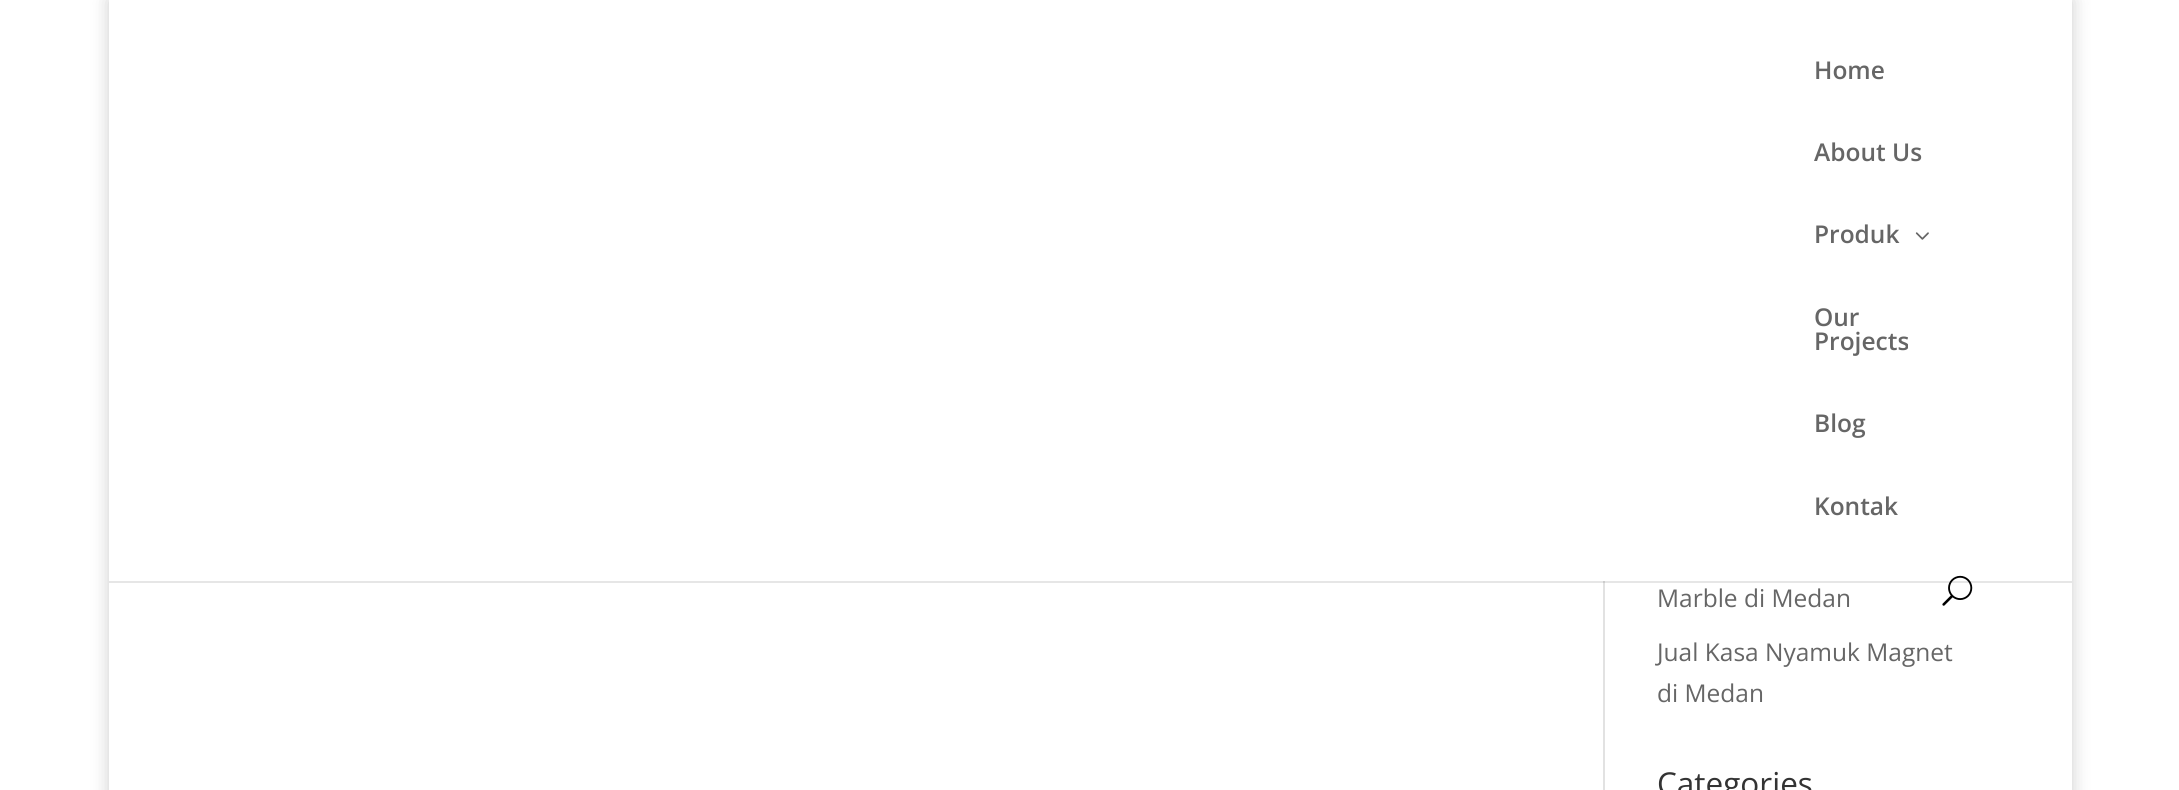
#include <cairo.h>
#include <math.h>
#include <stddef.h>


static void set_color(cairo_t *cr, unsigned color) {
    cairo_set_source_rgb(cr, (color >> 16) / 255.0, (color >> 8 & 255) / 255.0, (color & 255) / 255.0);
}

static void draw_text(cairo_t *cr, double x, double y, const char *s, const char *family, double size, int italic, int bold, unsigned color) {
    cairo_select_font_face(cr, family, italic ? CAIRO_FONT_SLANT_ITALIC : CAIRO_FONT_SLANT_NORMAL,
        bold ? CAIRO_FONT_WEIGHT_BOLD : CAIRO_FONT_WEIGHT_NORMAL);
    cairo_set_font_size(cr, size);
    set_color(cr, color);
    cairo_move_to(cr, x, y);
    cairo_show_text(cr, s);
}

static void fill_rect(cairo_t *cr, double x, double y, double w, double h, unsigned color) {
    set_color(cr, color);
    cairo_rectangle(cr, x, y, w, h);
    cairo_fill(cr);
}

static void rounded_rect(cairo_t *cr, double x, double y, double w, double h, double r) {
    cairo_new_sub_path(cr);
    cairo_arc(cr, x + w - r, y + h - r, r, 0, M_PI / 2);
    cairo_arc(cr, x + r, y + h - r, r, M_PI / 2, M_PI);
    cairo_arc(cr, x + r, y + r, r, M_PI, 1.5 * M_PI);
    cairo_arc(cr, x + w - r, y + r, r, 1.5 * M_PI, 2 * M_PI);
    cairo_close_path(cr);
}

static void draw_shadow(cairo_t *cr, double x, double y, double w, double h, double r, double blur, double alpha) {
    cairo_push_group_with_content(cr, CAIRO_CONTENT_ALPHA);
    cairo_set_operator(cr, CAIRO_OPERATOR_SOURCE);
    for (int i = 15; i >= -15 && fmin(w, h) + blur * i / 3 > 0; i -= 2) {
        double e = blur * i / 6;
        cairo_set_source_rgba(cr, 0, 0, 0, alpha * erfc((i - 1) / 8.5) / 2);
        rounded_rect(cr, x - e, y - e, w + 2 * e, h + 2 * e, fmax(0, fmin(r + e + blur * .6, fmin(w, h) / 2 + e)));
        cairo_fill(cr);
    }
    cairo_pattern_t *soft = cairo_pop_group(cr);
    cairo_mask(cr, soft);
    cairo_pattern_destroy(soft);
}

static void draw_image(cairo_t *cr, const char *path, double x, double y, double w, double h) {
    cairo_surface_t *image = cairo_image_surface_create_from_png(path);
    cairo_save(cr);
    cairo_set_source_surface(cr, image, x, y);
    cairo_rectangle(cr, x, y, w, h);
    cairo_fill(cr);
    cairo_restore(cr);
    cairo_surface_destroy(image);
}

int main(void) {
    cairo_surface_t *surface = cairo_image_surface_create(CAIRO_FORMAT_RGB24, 2179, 790);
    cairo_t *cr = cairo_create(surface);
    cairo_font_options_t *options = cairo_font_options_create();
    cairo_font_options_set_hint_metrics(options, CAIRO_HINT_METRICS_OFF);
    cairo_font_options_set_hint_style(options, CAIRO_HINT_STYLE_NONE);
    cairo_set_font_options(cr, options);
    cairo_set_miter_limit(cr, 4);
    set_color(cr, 0xFFFFFF);
    cairo_paint(cr);
    fill_rect(cr, 109, 581, 1963, 2, 0xE6E6E6);
    cairo_save(cr);
    cairo_set_fill_rule(cr, CAIRO_FILL_RULE_EVEN_ODD);
    cairo_new_path(cr);
    cairo_move_to(cr, 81, 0);
    cairo_line_to(cr, 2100, 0);
    cairo_line_to(cr, 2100, 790);
    cairo_line_to(cr, 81, 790);
    cairo_close_path(cr);
    cairo_move_to(cr, 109, 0);
    cairo_line_to(cr, 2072, 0);
    cairo_line_to(cr, 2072, 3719);
    cairo_line_to(cr, 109, 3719);
    cairo_close_path(cr);
    cairo_clip(cr);
    set_color(cr, 0x000000);
    draw_shadow(cr, 109, 0, 1963, 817, 0, 9, 0.2);
    cairo_restore(cr);
    draw_text(cr, 1814, 79, "Home", "Open Sans SemiBold", 24.5, 0, 0, 0x666666);
    draw_text(cr, 1814, 161, "About Us", "Open Sans SemiBold", 24.5, 0, 0, 0x666666);
    draw_text(cr, 1814, 243, "Produk", "Open Sans SemiBold", 24.5, 0, 0, 0x666666);
    draw_image(cr, "assets/img1.png", 1915, 232, 14, 8);
    draw_text(cr, 1814, 326, "Our", "Open Sans SemiBold", 24.5, 0, 0, 0x666666);
    draw_text(cr, 1814, 350, "Projects", "Open Sans SemiBold", 24.5, 0, 0, 0x666666);
    draw_text(cr, 1814, 432, "Blog", "Open Sans SemiBold", 24.5, 0, 0, 0x666666);
    draw_text(cr, 1814, 515, "Kontak", "Open Sans SemiBold", 24.5, 0, 0, 0x666666);
    draw_image(cr, "assets/img2.png", 1942, 575, 31, 31);
    fill_rect(cr, 1603, 583, 2, 207, 0xE2E2E2);
    fill_rect(cr, 1603, 581, 2, 2, 0xCBCBCB);
    draw_text(cr, 1657, 607, "Marble di Medan", "Open Sans", 24.5, 0, 0, 0x666666);
    draw_text(cr, 1657, 661, "Jual Kasa Nyamuk Magnet", "Open Sans", 24.5, 0, 0, 0x666666);
    draw_text(cr, 1657, 702, "di Medan", "Open Sans", 24.5, 0, 0, 0x666666);
    draw_text(cr, 1657, 795, "Categories", "Open Sans", 31.5, 0, 0, 0x333333);
    cairo_surface_write_to_png(surface, "output.png");
    cairo_font_options_destroy(options);
    cairo_destroy(cr);
    cairo_surface_destroy(surface);
    return 0;
}
